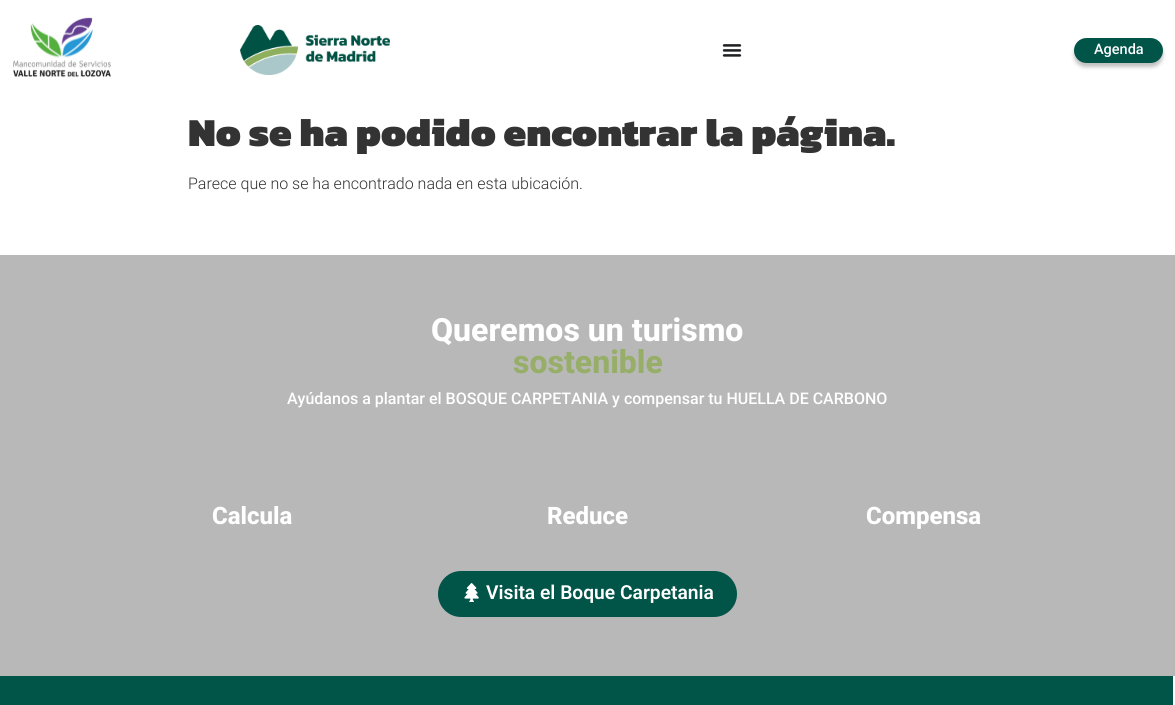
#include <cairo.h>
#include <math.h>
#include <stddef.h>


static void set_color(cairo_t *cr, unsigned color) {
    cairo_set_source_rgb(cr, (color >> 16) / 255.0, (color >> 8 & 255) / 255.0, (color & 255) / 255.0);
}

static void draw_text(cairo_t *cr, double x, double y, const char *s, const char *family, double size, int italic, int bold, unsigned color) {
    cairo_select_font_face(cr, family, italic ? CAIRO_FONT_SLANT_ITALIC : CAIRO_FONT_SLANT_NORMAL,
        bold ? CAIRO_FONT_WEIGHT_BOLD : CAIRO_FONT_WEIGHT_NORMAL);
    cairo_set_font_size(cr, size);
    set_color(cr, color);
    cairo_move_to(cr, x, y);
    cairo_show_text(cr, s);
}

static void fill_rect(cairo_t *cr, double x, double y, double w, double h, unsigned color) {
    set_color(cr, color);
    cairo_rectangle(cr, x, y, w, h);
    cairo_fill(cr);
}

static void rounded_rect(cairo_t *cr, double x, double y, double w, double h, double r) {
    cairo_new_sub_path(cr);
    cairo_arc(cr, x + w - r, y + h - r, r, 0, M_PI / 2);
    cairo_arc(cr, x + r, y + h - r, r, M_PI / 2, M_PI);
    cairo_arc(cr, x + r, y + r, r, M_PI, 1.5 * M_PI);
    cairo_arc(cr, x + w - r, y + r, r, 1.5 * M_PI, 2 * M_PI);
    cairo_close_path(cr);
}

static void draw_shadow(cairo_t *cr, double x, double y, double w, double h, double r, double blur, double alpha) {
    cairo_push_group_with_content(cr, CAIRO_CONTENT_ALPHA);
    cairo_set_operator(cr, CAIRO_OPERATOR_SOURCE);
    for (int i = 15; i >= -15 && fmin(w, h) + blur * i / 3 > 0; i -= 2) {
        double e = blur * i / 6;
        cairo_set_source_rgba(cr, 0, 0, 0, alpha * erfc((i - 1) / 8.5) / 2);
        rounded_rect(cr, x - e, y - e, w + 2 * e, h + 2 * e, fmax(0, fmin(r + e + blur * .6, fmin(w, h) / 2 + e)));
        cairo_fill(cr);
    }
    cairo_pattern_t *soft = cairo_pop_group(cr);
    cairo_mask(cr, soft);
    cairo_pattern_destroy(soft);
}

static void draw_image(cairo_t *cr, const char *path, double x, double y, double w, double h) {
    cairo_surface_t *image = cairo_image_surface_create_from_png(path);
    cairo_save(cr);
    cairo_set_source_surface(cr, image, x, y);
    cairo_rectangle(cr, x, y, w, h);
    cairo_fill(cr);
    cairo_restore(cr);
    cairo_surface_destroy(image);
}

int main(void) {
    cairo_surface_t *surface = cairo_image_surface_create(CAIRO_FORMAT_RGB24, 1175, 705);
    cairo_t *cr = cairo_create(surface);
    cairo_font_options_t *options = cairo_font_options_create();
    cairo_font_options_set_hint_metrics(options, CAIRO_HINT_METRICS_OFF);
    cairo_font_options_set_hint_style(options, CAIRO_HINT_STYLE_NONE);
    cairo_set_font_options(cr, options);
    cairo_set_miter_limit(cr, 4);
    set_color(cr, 0xFFFFFF);
    cairo_paint(cr);
    draw_image(cr, "assets/img1.png", 13, 17, 98, 60);
    draw_image(cr, "assets/img2.png", 240, 25, 150, 50);
    draw_image(cr, "assets/img3.png", 722, 44, 20, 13);
    set_color(cr, 0x000000);
    draw_shadow(cr, 1074, 42, 89, 25, 12.5, 2, 0.25);
    set_color(cr, 0x005448);
    rounded_rect(cr, 1074, 38, 89, 25, 12.5);
    cairo_fill(cr);
    draw_text(cr, 1094, 54, "Agenda", "Roboto Medium", 14.5, 0, 0, 0xFFFFFF);
    draw_text(cr, 188, 146, "No se ha podido encontrar la página.", "Kanit Black", 40, 0, 0, 0x333333);
    draw_text(cr, 188, 189, "Parece que no se ha encontrado nada en esta ubicación.", "Roboto Light", 16, 0, 0, 0x333333);
    fill_rect(cr, 0, 255, 1175, 421, 0xB9B8B8);
    draw_text(cr, 431, 341, "Queremos un turismo", "Roboto ExtraBold", 32, 0, 0, 0xFFFFFF);
    draw_text(cr, 513, 373, "sostenible", "Roboto ExtraBold", 32, 0, 0, 0x97AE68);
    draw_text(cr, 287, 404, "Ayúdanos a plantar el BOSQUE CARPETANIA y compensar tu HUELLA DE CARBONO", "Roboto Medium", 16, 0, 0, 0xFFFFFF);
    draw_text(cr, 212, 524, "Calcula", "Roboto ExtraBold", 24, 0, 0, 0xFFFFFF);
    draw_text(cr, 547, 524, "Reduce", "Roboto ExtraBold", 24, 0, 0, 0xFFFFFF);
    draw_text(cr, 866, 524, "Compensa", "Roboto ExtraBold", 24, 0, 0, 0xFFFFFF);
    set_color(cr, 0x005448);
    rounded_rect(cr, 438, 571, 299, 46, 23);
    cairo_fill(cr);
    draw_image(cr, "assets/img4.png", 464, 583, 15, 19);
    draw_text(cr, 486, 599, "Visita el Boque Carpetania", "Roboto SemiBold", 19.25, 0, 0, 0xFFFFFF);
    fill_rect(cr, 0, 676, 1173, 29, 0x005448);
    cairo_surface_write_to_png(surface, "output.png");
    cairo_font_options_destroy(options);
    cairo_destroy(cr);
    cairo_surface_destroy(surface);
    return 0;
}
